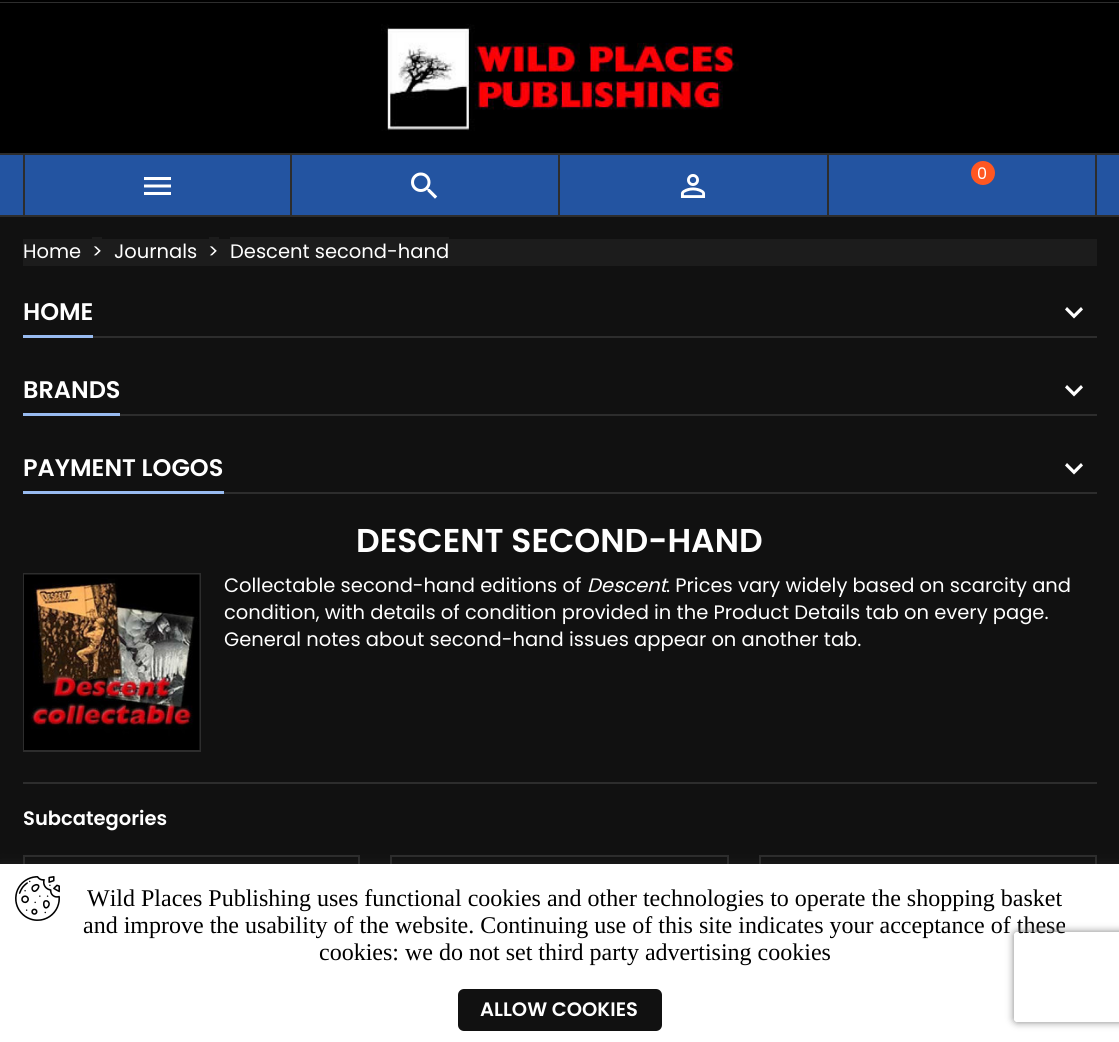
#include <cairo.h>
#include <math.h>
#include <stddef.h>


static void set_color(cairo_t *cr, unsigned color) {
    cairo_set_source_rgb(cr, (color >> 16) / 255.0, (color >> 8 & 255) / 255.0, (color & 255) / 255.0);
}

static void draw_text(cairo_t *cr, double x, double y, const char *s, const char *family, double size, int italic, int bold, unsigned color) {
    cairo_select_font_face(cr, family, italic ? CAIRO_FONT_SLANT_ITALIC : CAIRO_FONT_SLANT_NORMAL,
        bold ? CAIRO_FONT_WEIGHT_BOLD : CAIRO_FONT_WEIGHT_NORMAL);
    cairo_set_font_size(cr, size);
    set_color(cr, color);
    cairo_move_to(cr, x, y);
    cairo_show_text(cr, s);
}

static void fill_rect(cairo_t *cr, double x, double y, double w, double h, unsigned color) {
    set_color(cr, color);
    cairo_rectangle(cr, x, y, w, h);
    cairo_fill(cr);
}

static void rounded_rect(cairo_t *cr, double x, double y, double w, double h, double r) {
    cairo_new_sub_path(cr);
    cairo_arc(cr, x + w - r, y + h - r, r, 0, M_PI / 2);
    cairo_arc(cr, x + r, y + h - r, r, M_PI / 2, M_PI);
    cairo_arc(cr, x + r, y + r, r, M_PI, 1.5 * M_PI);
    cairo_arc(cr, x + w - r, y + r, r, 1.5 * M_PI, 2 * M_PI);
    cairo_close_path(cr);
}

static void draw_shadow(cairo_t *cr, double x, double y, double w, double h, double r, double blur, double alpha) {
    cairo_push_group_with_content(cr, CAIRO_CONTENT_ALPHA);
    cairo_set_operator(cr, CAIRO_OPERATOR_SOURCE);
    for (int i = 15; i >= -15 && fmin(w, h) + blur * i / 3 > 0; i -= 2) {
        double e = blur * i / 6;
        cairo_set_source_rgba(cr, 0, 0, 0, alpha * erfc((i - 1) / 8.5) / 2);
        rounded_rect(cr, x - e, y - e, w + 2 * e, h + 2 * e, fmax(0, fmin(r + e + blur * .6, fmin(w, h) / 2 + e)));
        cairo_fill(cr);
    }
    cairo_pattern_t *soft = cairo_pop_group(cr);
    cairo_mask(cr, soft);
    cairo_pattern_destroy(soft);
}

static void draw_image(cairo_t *cr, const char *path, double x, double y, double w, double h) {
    cairo_surface_t *image = cairo_image_surface_create_from_png(path);
    cairo_save(cr);
    cairo_set_source_surface(cr, image, x, y);
    cairo_rectangle(cr, x, y, w, h);
    cairo_fill(cr);
    cairo_restore(cr);
    cairo_surface_destroy(image);
}

int main(void) {
    cairo_surface_t *surface = cairo_image_surface_create(CAIRO_FORMAT_RGB24, 1119, 1042);
    cairo_t *cr = cairo_create(surface);
    cairo_font_options_t *options = cairo_font_options_create();
    cairo_font_options_set_hint_metrics(options, CAIRO_HINT_METRICS_OFF);
    cairo_font_options_set_hint_style(options, CAIRO_HINT_STYLE_NONE);
    cairo_set_font_options(cr, options);
    cairo_set_miter_limit(cr, 4);
    set_color(cr, 0x111111);
    cairo_paint(cr);
    fill_rect(cr, 0, 0, 1119, 2, 0x000000);
    fill_rect(cr, 0, 2, 1119, 1, 0x2D2D2D);
    fill_rect(cr, 0, 3, 1119, 150, 0x000000);
    draw_image(cr, "assets/img1.png", 381, 24, 358, 107);
    fill_rect(cr, 0, 155, 1119, 60, 0x2354A1);
    fill_rect(cr, 0, 153, 1119, 2, 0x2D2D2D);
    fill_rect(cr, 0, 215, 1119, 2, 0x2D2D2D);
    fill_rect(cr, 290, 155, 2, 60, 0x2D2D2D);
    fill_rect(cr, 23, 155, 2, 60, 0x2D2D2D);
    draw_image(cr, "assets/img2.png", 144, 177, 27, 18);
    fill_rect(cr, 558, 155, 2, 60, 0x2D2D2D);
    draw_image(cr, "assets/img3.png", 411, 172, 27, 27);
    fill_rect(cr, 827, 155, 2, 60, 0x2D2D2D);
    draw_image(cr, "assets/img4.png", 680, 174, 26, 24);
    fill_rect(cr, 1095, 155, 2, 60, 0x2D2D2D);
    set_color(cr, 0xFF5722);
    cairo_arc(cr, 983, 173, 12, 0, 2 * M_PI);
    cairo_fill(cr);
    draw_text(cr, 977, 179, "0", "Poppins", 16, 0, 0, 0xFFFFFF);
    fill_rect(cr, 23, 239, 1074, 27, 0x1C1C1C);
    draw_text(cr, 23, 258, "Home", "Poppins", 19.5, 0, 0, 0xFFFFFF);
    draw_text(cr, 92, 258, ">", "Poppins", 19.5, 0, 0, 0xFFFFFF);
    fill_rect(cr, 92, 237, 10, 2, 0x1C1C1C);
    draw_text(cr, 114, 258, "Journals", "Poppins", 19.5, 0, 0, 0xFFFFFF);
    draw_text(cr, 208, 258, ">", "Poppins", 19.5, 0, 0, 0xFFFFFF);
    fill_rect(cr, 209, 237, 10, 2, 0x1C1C1C);
    draw_text(cr, 230, 258, "Descent second-hand", "Poppins", 19.5, 0, 0, 0xFFFFFF);
    fill_rect(cr, 230, 237, 219, 2, 0x1C1C1C);
    fill_rect(cr, 93, 336, 1004, 2, 0x2D2D2D);
    fill_rect(cr, 23, 335, 70, 3, 0x98BBF0);
    draw_text(cr, 23, 320, "HOME", "Poppins SemiBold", 24, 0, 0, 0xFFFFFF);
    cairo_new_path(cr);
    cairo_move_to(cr, 1067, 307);
    cairo_line_to(cr, 1074, 314);
    cairo_line_to(cr, 1081, 307);
    cairo_line_to(cr, 1083, 309.5);
    cairo_line_to(cr, 1074, 318.5);
    cairo_line_to(cr, 1065, 309.5);
    cairo_close_path(cr);
    cairo_fill(cr);
    fill_rect(cr, 120, 414, 977, 2, 0x2D2D2D);
    fill_rect(cr, 23, 413, 97, 3, 0x98BBF0);
    draw_text(cr, 23, 398, "BRANDS", "Poppins SemiBold", 24, 0, 0, 0xFFFFFF);
    cairo_new_path(cr);
    cairo_move_to(cr, 1067, 385);
    cairo_line_to(cr, 1074, 392);
    cairo_line_to(cr, 1081, 385);
    cairo_line_to(cr, 1083, 387.5);
    cairo_line_to(cr, 1074, 396.5);
    cairo_line_to(cr, 1065, 387.5);
    cairo_close_path(cr);
    cairo_fill(cr);
    fill_rect(cr, 224, 492, 873, 2, 0x2D2D2D);
    fill_rect(cr, 23, 491, 201, 3, 0x98BBF0);
    draw_text(cr, 23, 476, "PAYMENT LOGOS", "Poppins SemiBold", 24, 0, 0, 0xFFFFFF);
    cairo_new_path(cr);
    cairo_move_to(cr, 1067, 463);
    cairo_line_to(cr, 1074, 470);
    cairo_line_to(cr, 1081, 463);
    cairo_line_to(cr, 1083, 465.5);
    cairo_line_to(cr, 1074, 474.5);
    cairo_line_to(cr, 1065, 465.5);
    cairo_close_path(cr);
    cairo_fill(cr);
    draw_text(cr, 356, 552, "DESCENT SECOND-HAND", "Poppins SemiBold", 33, 0, 0, 0xFFFFFF);
    cairo_rectangle(cr, 24, 574, 176, 177);
    set_color(cr, 0x2D2D2D);
    cairo_stroke(cr);
    draw_image(cr, "assets/img5.png", 24, 574, 176, 176);
    draw_text(cr, 224, 592, "Collectable second-hand editions of", "Poppins", 19.5, 0, 0, 0xFFFFFF);
    draw_text(cr, 587, 592, "Descent", "Poppins", 19.5, 1, 0, 0xFFFFFF);
    draw_text(cr, 666, 592, ". Prices vary widely based on scarcity and", "Poppins", 19.5, 0, 0, 0xFFFFFF);
    draw_text(cr, 224, 619, "condition, with details of condition provided in the Product Details tab on every page.", "Poppins", 19.5, 0, 0, 0xFFFFFF);
    draw_text(cr, 224, 646, "General notes about second-hand issues appear on another tab.", "Poppins", 19.5, 0, 0, 0xFFFFFF);
    fill_rect(cr, 23, 782, 1074, 2, 0x2D2D2D);
    draw_text(cr, 23, 825, "Subcategories", "Poppins SemiBold", 19.5, 0, 0, 0xFFFFFF);
    cairo_rectangle(cr, 24, 856, 335, 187);
    set_color(cr, 0x2D2D2D);
    cairo_stroke(cr);
    cairo_rectangle(cr, 391, 856, 337, 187);
    cairo_stroke(cr);
    cairo_rectangle(cr, 760, 856, 336, 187);
    cairo_stroke(cr);
    set_color(cr, 0x333333);
    draw_shadow(cr, 0, 870, 1119, 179, 0, 7.5, 1);
    fill_rect(cr, 0, 864, 1119, 178, 0xFFFFFF);
    draw_image(cr, "assets/img6.png", 15, 876, 45, 45);
    draw_text(cr, 87, 906, "Wild Places Publishing uses functional cookies and other technologies to operate the shopping basket", "Liberation Serif", 24, 0, 0, 0x000000);
    draw_text(cr, 83, 933, "and improve the usability of the website. Continuing use of this site indicates your acceptance of these", "Liberation Serif", 24, 0, 0, 0x000000);
    draw_text(cr, 319, 960, "cookies: we do not set third party advertising cookies", "Liberation Serif", 24, 0, 0, 0x000000);
    set_color(cr, 0x111111);
    rounded_rect(cr, 458, 989, 204, 42, 6);
    cairo_fill(cr);
    draw_text(cr, 480, 1016, "ALLOW COOKIES", "Poppins SemiBold", 19.5, 0, 0, 0xFFFFFF);
    cairo_save(cr);
    cairo_set_fill_rule(cr, CAIRO_FILL_RULE_EVEN_ODD);
    cairo_new_path(cr);
    cairo_move_to(cr, 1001, 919);
    cairo_line_to(cr, 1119, 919);
    cairo_line_to(cr, 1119, 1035);
    cairo_line_to(cr, 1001, 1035);
    cairo_close_path(cr);
    cairo_move_to(cr, 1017, 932);
    cairo_line_to(cr, 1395, 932);
    cairo_curve_to(cr, 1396.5, 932, 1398, 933.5, 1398, 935);
    cairo_line_to(cr, 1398, 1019);
    cairo_curve_to(cr, 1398, 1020.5, 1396.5, 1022, 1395, 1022);
    cairo_line_to(cr, 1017, 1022);
    cairo_curve_to(cr, 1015.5, 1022, 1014, 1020.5, 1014, 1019);
    cairo_line_to(cr, 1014, 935);
    cairo_curve_to(cr, 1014, 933.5, 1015.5, 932, 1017, 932);
    cairo_close_path(cr);
    cairo_clip(cr);
    set_color(cr, 0x808080);
    draw_shadow(cr, 1014, 932, 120, 90, 3, 4, 1);
    cairo_restore(cr);
    cairo_surface_write_to_png(surface, "output.png");
    cairo_font_options_destroy(options);
    cairo_destroy(cr);
    cairo_surface_destroy(surface);
    return 0;
}
